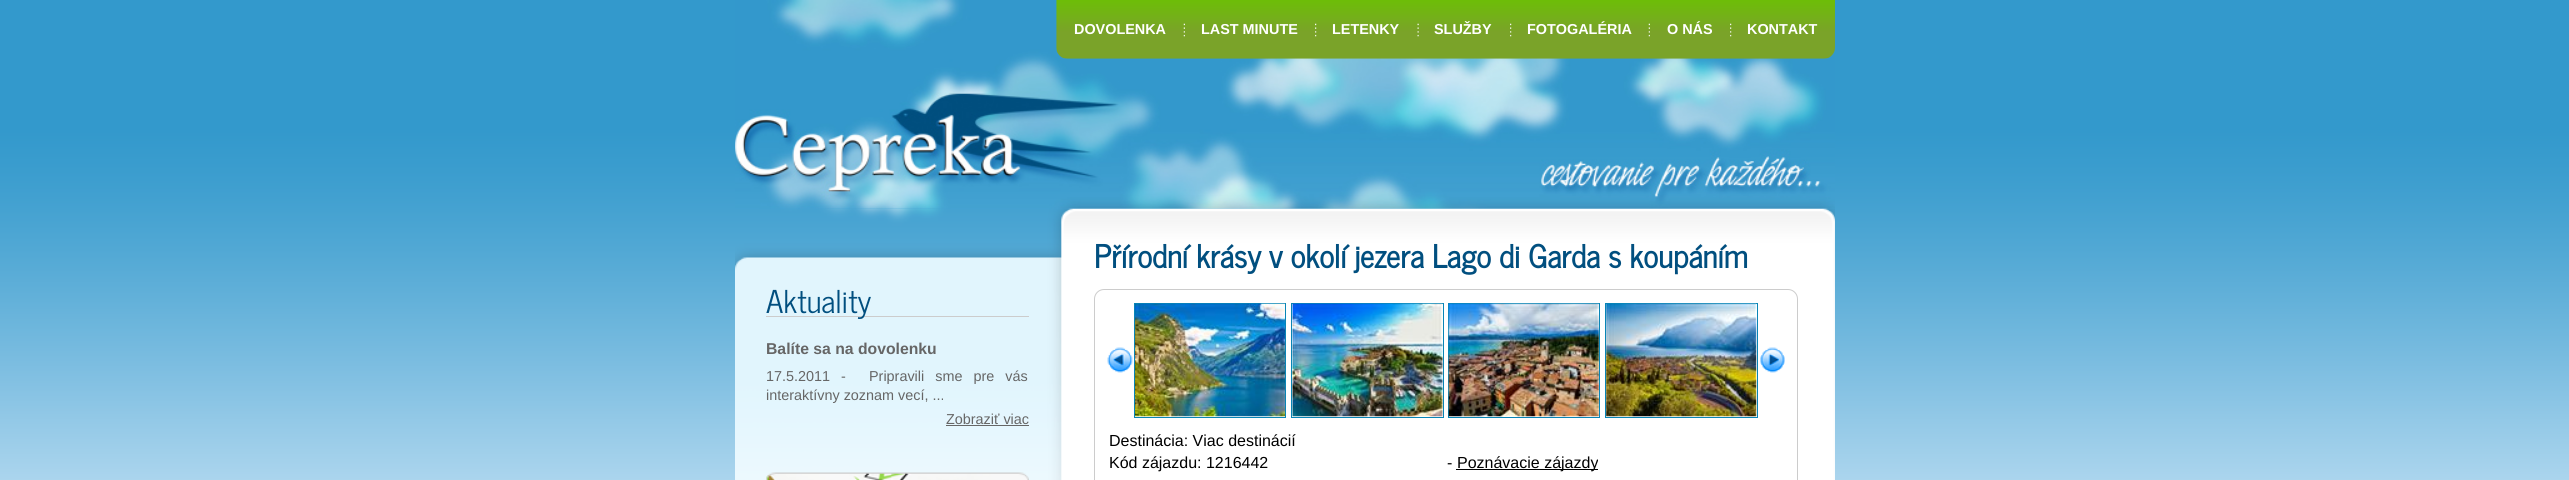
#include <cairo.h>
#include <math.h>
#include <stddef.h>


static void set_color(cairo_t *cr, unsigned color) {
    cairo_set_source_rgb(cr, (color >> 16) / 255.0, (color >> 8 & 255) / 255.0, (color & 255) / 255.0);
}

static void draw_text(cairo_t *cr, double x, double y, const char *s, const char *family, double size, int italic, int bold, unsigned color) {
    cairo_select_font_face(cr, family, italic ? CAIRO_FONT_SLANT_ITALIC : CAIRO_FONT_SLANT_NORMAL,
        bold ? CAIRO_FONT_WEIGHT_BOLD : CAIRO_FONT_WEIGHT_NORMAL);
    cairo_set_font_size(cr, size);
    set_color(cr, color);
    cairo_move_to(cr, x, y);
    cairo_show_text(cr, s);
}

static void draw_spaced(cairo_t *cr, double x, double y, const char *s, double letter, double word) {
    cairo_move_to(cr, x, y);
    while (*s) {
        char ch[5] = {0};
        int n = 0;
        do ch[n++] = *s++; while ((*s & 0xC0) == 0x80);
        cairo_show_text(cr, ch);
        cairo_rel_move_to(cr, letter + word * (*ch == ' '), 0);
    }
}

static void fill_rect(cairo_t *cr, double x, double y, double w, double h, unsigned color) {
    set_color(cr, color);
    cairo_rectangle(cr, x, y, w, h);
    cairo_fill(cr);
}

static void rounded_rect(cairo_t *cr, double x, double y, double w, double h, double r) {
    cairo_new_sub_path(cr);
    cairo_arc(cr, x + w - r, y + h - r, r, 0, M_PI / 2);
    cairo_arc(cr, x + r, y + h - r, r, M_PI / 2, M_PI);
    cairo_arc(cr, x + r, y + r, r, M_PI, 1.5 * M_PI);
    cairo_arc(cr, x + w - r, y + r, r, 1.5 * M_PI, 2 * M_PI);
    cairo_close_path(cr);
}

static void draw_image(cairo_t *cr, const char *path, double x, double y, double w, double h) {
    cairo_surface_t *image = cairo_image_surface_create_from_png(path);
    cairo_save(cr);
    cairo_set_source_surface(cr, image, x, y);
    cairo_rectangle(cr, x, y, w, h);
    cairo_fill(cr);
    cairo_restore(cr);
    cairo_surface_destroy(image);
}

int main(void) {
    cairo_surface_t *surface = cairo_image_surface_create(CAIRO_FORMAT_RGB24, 2569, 480);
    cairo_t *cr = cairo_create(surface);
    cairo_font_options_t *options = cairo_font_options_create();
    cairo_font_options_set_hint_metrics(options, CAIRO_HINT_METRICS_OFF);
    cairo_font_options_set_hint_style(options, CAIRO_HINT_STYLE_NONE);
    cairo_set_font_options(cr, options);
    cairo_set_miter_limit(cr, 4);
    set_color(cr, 0xFFFFFF);
    cairo_paint(cr);
    draw_image(cr, "assets/img1.png", 0, 0, 2569, 480);
    draw_image(cr, "assets/img2.png", 735, 0, 1100, 209);
    draw_image(cr, "assets/img3.png", 1056, 0, 779, 59);
    draw_text(cr, 1074, 34, "DOVOLENKA", "Liberation Sans", 14.4, 0, 1, 0xFFFFFF);
    draw_image(cr, "assets/img4.png", 1183, 23, 2, 14);
    draw_text(cr, 1201, 34, "LAST MINUTE", "Liberation Sans", 14.4, 0, 1, 0xFFFFFF);
    draw_image(cr, "assets/img5.png", 1315, 23, 2, 14);
    draw_text(cr, 1332, 34, "LETENKY", "Liberation Sans", 14.4, 0, 1, 0xFFFFFF);
    draw_image(cr, "assets/img6.png", 1417, 23, 2, 14);
    draw_text(cr, 1434, 34, "SLUŽBY", "Liberation Sans", 14.4, 0, 1, 0xFFFFFF);
    draw_image(cr, "assets/img5.png", 1510, 23, 2, 14);
    draw_text(cr, 1527, 34, "FOTOGALÉRIA", "Liberation Sans", 14.4, 0, 1, 0xFFFFFF);
    draw_image(cr, "assets/img7.png", 1648, 23, 2, 14);
    draw_text(cr, 1667, 34, "O NÁS", "Liberation Sans", 14.4, 0, 1, 0xFFFFFF);
    draw_image(cr, "assets/img8.png", 1730, 23, 2, 14);
    draw_text(cr, 1747, 34, "KONTAKT", "Liberation Sans", 14.4, 0, 1, 0xFFFFFF);
    draw_image(cr, "assets/img9.png", 735, 208, 1100, 272);
    fill_rect(cr, 766, 316, 263, 1, 0xCCCCCC);
    draw_text(cr, 766, 313, "Aktuality", "News Cycle", 31.25, 0, 0, 0x014F7F);
    draw_text(cr, 766, 354, "Balíte sa na dovolenku", "Liberation Sans", 15.75, 0, 1, 0x666666);
    cairo_select_font_face(cr, "Liberation Sans", CAIRO_FONT_SLANT_NORMAL, CAIRO_FONT_WEIGHT_NORMAL);
    cairo_set_font_size(cr, 14.4);
    draw_spaced(cr, 766, 381, "17.5.2011 -", 0, 7);
    draw_spaced(cr, 869, 381, "Pripravili sme pre vás", 0, 7);
    draw_text(cr, 766, 400, "interaktívny zoznam vecí, ...", "Liberation Sans", 14.4, 0, 0, 0x666666);
    draw_text(cr, 946, 424, "Zobraziť viac", "Liberation Sans", 14.4, 0, 0, 0x666666);
    fill_rect(cr, 946, 425, 83, 1, 0x666666);
    draw_image(cr, "assets/img10.png", 766, 472, 263, 8);
    draw_text(cr, 1094, 268, "Přírodní krásy v okolí jezera Lago di Garda s koupáním", "News Cycle", 31.25, 0, 1, 0x014F7F);
    rounded_rect(cr, 1094.5, 289.5, 703, 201, 9.5);
    set_color(cr, 0xCCCCCC);
    cairo_set_line_width(cr, 1);
    cairo_stroke(cr);
    draw_image(cr, "assets/img11.png", 1107, 347, 26, 26);
    cairo_rectangle(cr, 1134.5, 303.5, 151, 114);
    set_color(cr, 0x0885B6);
    cairo_stroke(cr);
    draw_image(cr, "assets/img12.png", 1135, 303, 150, 114);
    cairo_rectangle(cr, 1291.5, 303.5, 152, 114);
    cairo_stroke(cr);
    draw_image(cr, "assets/img13.png", 1292, 303, 151, 114);
    cairo_rectangle(cr, 1448.5, 303.5, 151, 114);
    cairo_stroke(cr);
    draw_image(cr, "assets/img14.png", 1448, 303, 151, 114);
    cairo_rectangle(cr, 1605.5, 303.5, 152, 114);
    cairo_stroke(cr);
    draw_image(cr, "assets/img15.png", 1606, 303, 151, 114);
    draw_image(cr, "assets/img16.png", 1760, 347, 25, 26);
    draw_text(cr, 1109, 446, "Destinácia: Viac destinácií", "Liberation Sans", 16, 0, 0, 0x000000);
    draw_text(cr, 1109, 468, "Kód zájazdu: 1216442", "Liberation Sans", 16, 0, 0, 0x000000);
    draw_text(cr, 1447, 468, "-", "Liberation Sans", 16, 0, 0, 0x000000);
    fill_rect(cr, 1456, 469, 142, 1, 0x000000);
    draw_text(cr, 1457, 468, "Poznávacie zájazdy", "Liberation Sans", 16, 0, 0, 0x000000);
    cairo_surface_write_to_png(surface, "output.png");
    cairo_font_options_destroy(options);
    cairo_destroy(cr);
    cairo_surface_destroy(surface);
    return 0;
}
